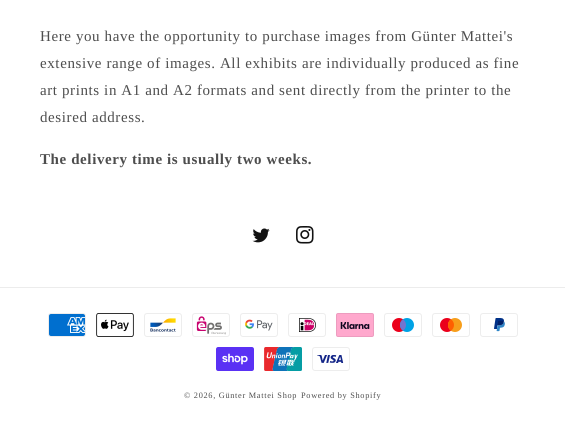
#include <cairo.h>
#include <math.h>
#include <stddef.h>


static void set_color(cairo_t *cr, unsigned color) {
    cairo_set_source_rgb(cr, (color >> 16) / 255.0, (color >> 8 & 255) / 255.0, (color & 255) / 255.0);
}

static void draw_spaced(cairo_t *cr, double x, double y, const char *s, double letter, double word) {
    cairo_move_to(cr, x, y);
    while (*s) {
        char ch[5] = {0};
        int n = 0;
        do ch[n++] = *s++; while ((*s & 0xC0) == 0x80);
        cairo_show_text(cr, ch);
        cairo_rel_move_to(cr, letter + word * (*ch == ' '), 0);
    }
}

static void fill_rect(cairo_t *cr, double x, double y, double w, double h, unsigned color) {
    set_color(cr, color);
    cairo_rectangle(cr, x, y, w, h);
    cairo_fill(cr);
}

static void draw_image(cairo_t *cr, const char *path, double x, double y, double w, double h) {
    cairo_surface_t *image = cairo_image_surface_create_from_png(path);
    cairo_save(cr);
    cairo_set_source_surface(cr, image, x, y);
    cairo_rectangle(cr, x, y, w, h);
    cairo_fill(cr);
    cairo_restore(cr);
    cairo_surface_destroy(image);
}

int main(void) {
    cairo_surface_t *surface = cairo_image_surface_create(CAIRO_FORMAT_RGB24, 565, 430);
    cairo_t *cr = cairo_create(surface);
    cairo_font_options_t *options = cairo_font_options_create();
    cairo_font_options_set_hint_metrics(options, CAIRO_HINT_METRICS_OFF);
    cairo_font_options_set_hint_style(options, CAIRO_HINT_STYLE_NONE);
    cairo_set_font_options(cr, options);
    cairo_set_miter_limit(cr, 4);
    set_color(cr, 0xFFFFFF);
    cairo_paint(cr);
    cairo_select_font_face(cr, "Liberation Serif", CAIRO_FONT_SLANT_NORMAL, CAIRO_FONT_WEIGHT_NORMAL);
    cairo_set_font_size(cr, 15);
    set_color(cr, 0x4D4D4D);
    draw_spaced(cr, 40, 41, "Here you have the opportunity to purchase images from Günter Mattei's", 0.6, 0);
    draw_spaced(cr, 40, 68, "extensive range of images. All exhibits are individually produced as fine", 0.6, 0);
    draw_spaced(cr, 40, 95, "art prints in A1 and A2 formats and sent directly from the printer to the", 0.6, 0);
    draw_spaced(cr, 40, 122, "desired address.", 0.6, 0);
    cairo_select_font_face(cr, "Liberation Serif", CAIRO_FONT_SLANT_NORMAL, CAIRO_FONT_WEIGHT_BOLD);
    draw_spaced(cr, 40, 164, "The delivery time is usually two weeks.", 0.6, 0);
    draw_image(cr, "assets/img1.png", 252, 228, 18, 15);
    draw_image(cr, "assets/img2.png", 296, 226, 18, 18);
    fill_rect(cr, 0, 287, 565, 1, 0xECECEC);
    draw_image(cr, "assets/img3.png", 48, 313, 38, 24);
    draw_image(cr, "assets/img4.png", 96, 313, 38, 24);
    draw_image(cr, "assets/img5.png", 144, 313, 38, 24);
    draw_image(cr, "assets/img6.png", 192, 313, 38, 24);
    draw_image(cr, "assets/img7.png", 240, 313, 38, 24);
    draw_image(cr, "assets/img8.png", 288, 313, 38, 24);
    draw_image(cr, "assets/img9.png", 336, 313, 38, 24);
    draw_image(cr, "assets/img10.png", 384, 313, 38, 24);
    draw_image(cr, "assets/img11.png", 432, 313, 38, 24);
    draw_image(cr, "assets/img12.png", 480, 313, 38, 24);
    draw_image(cr, "assets/img13.png", 216, 347, 38, 24);
    draw_image(cr, "assets/img14.png", 264, 347, 38, 24);
    draw_image(cr, "assets/img15.png", 312, 347, 38, 24);
    cairo_select_font_face(cr, "Liberation Serif", CAIRO_FONT_SLANT_NORMAL, CAIRO_FONT_WEIGHT_NORMAL);
    cairo_set_font_size(cr, 8.3);
    set_color(cr, 0x4D4D4D);
    draw_spaced(cr, 184, 398, "© 2026, Günter Mattei Shop", 0.7, 0);
    draw_spaced(cr, 301, 398, "Powered by Shopify", 0.7, 0);
    cairo_surface_write_to_png(surface, "output.png");
    cairo_font_options_destroy(options);
    cairo_destroy(cr);
    cairo_surface_destroy(surface);
    return 0;
}
